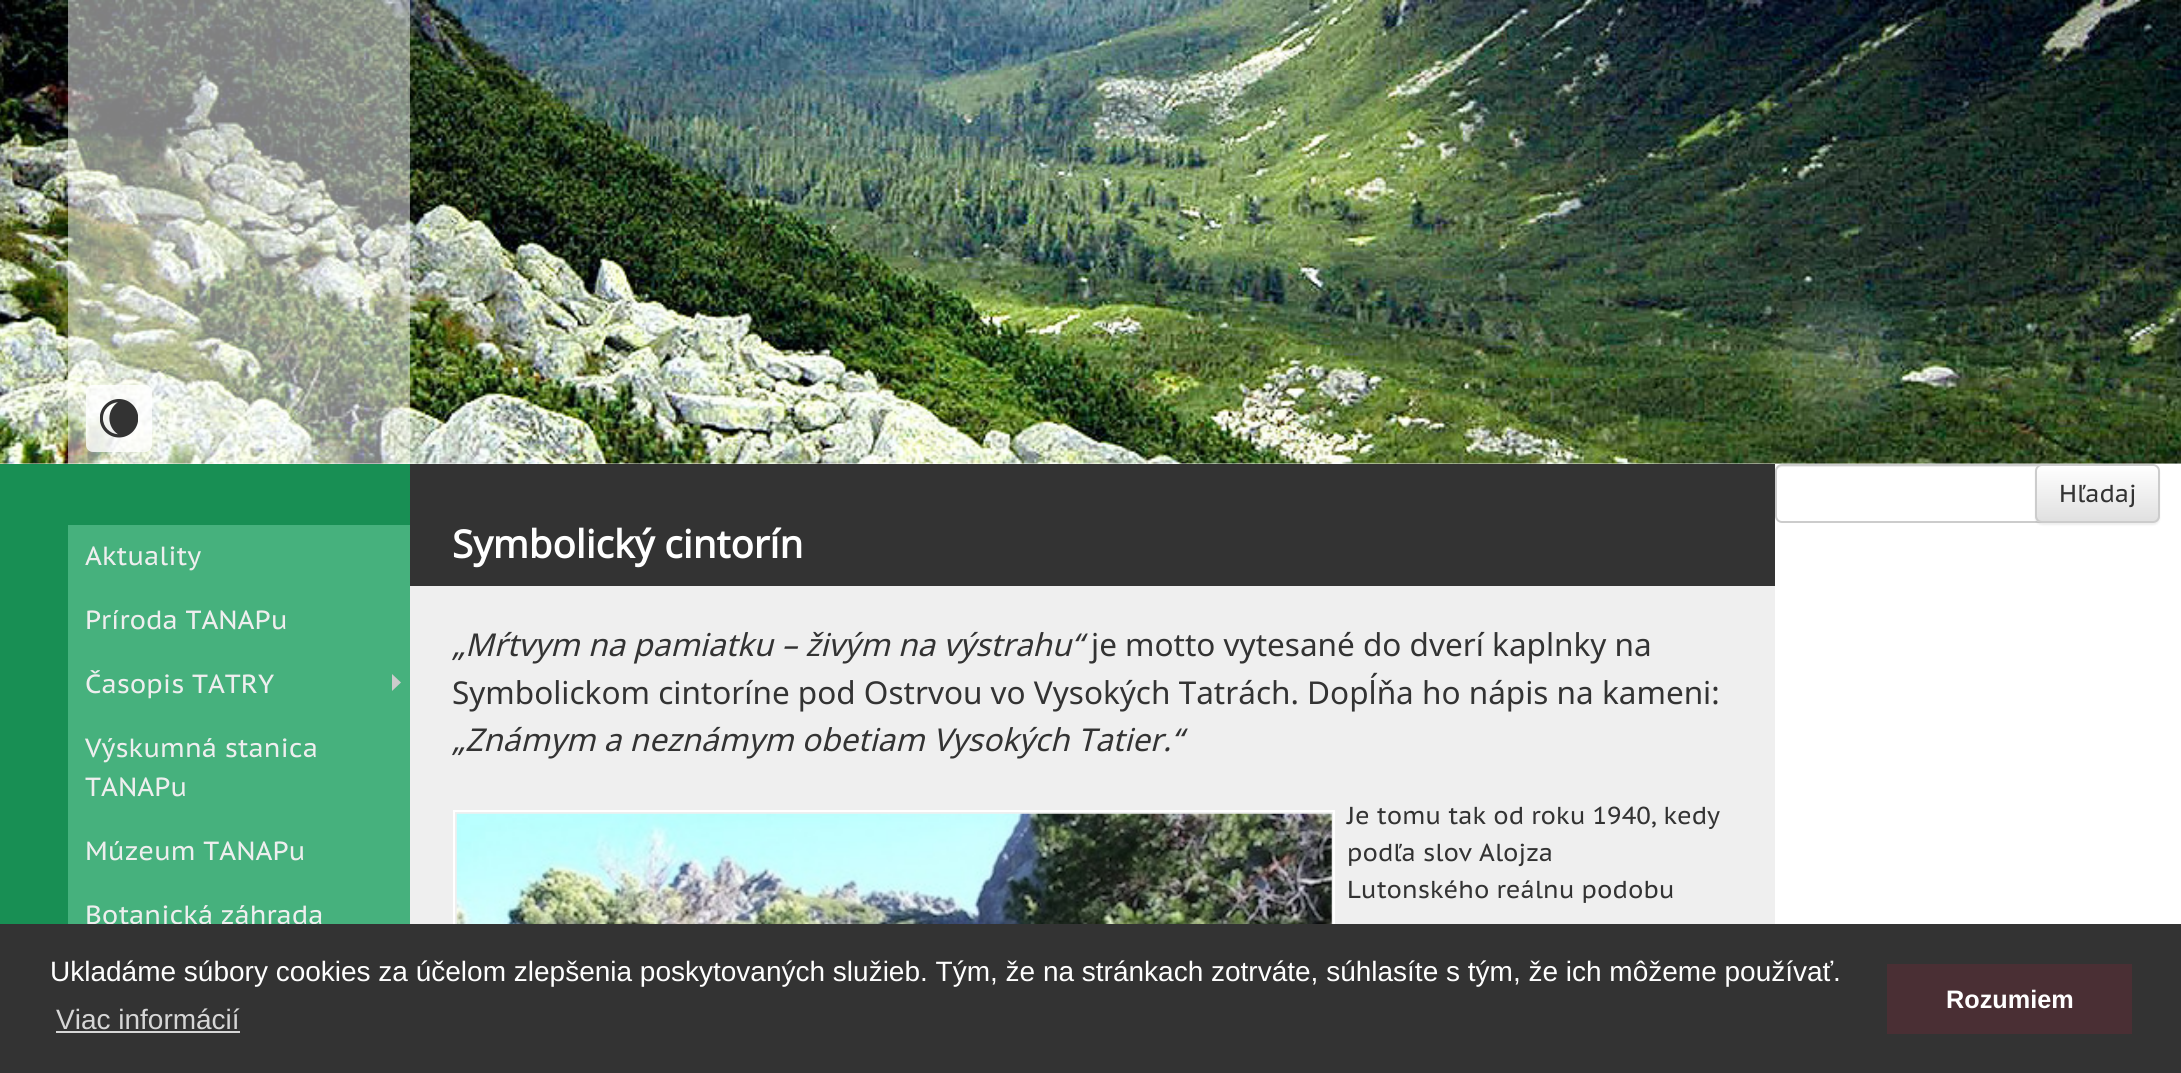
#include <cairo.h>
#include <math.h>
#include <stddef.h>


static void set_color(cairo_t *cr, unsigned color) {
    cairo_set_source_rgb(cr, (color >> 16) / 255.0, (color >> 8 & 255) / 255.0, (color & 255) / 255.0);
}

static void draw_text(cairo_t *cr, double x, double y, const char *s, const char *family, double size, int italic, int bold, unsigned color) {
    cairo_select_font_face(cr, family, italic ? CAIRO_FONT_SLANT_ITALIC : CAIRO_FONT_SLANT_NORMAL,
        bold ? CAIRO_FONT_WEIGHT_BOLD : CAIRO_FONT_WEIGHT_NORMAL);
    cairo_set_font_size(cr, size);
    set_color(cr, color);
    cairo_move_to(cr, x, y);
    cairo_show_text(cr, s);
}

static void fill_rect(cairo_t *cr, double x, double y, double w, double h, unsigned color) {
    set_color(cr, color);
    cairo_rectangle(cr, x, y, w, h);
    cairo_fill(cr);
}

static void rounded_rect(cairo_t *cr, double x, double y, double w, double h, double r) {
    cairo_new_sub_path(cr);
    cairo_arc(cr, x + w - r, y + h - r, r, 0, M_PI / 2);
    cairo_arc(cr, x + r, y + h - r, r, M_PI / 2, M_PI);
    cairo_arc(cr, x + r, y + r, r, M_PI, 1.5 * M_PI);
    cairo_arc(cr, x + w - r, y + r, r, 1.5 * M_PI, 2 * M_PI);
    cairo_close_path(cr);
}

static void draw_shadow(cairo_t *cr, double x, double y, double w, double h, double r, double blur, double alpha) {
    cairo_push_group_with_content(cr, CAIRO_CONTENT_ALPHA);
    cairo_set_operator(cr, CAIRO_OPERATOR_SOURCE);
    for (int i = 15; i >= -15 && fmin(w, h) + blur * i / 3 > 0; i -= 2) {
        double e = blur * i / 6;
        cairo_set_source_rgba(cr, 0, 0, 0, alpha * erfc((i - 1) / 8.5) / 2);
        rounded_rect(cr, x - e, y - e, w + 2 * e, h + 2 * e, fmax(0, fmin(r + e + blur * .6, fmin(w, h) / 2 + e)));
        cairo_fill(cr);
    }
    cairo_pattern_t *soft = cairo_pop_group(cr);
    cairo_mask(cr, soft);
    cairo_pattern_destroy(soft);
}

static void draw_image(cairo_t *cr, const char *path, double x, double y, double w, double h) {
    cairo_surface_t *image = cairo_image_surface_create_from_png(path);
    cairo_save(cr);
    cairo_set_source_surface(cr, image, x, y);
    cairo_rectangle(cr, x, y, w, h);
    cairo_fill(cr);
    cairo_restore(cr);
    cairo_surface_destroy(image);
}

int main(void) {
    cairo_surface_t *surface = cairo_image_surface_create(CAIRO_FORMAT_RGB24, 2181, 1073);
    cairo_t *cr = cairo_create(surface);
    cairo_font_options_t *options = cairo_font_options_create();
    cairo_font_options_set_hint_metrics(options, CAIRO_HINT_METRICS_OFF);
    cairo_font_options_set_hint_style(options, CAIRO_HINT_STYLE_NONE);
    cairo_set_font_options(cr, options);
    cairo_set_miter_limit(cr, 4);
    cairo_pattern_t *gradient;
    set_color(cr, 0xFFFFFF);
    cairo_paint(cr);
    fill_rect(cr, 0, 464, 410, 460, 0x188F54);
    set_color(cr, 0xECECEC);
    cairo_new_path(cr);
    cairo_move_to(cr, 1782, 467);
    cairo_line_to(cr, 2128, 467);
    cairo_curve_to(cr, 2131, 467, 2133, 470, 2133, 472);
    cairo_curve_to(cr, 2133, 469, 2131, 466, 2128, 466);
    cairo_line_to(cr, 1781, 466);
    cairo_curve_to(cr, 1778, 466, 1776, 469, 1776, 472);
    cairo_curve_to(cr, 1776, 470, 1779, 467, 1782, 467);
    cairo_close_path(cr);
    cairo_fill(cr);
    rounded_rect(cr, 1776, 465, 358, 57, 6);
    set_color(cr, 0xCCCCCC);
    cairo_stroke(cr);
    set_color(cr, 0x000000);
    draw_shadow(cr, 2035, 466, 125, 59, 7, 1, 0.07);
    draw_image(cr, "assets/img1.png", 0, 0, 2181, 464);
    cairo_set_source_rgba(cr, 1, 1, 1, 0.5);
    cairo_rectangle(cr, 68, 0, 342, 464);
    cairo_fill(cr);
    cairo_save(cr);
    rounded_rect(cr, 2035, 464, 125, 59, 7);
    cairo_clip(cr);
    gradient = cairo_pattern_create_linear(2097, 466, 2097, 522);
    cairo_pattern_add_color_stop_rgba(gradient, 0, 1, 1, 1, 1);
    cairo_pattern_add_color_stop_rgba(gradient, 1, 0.878, 0.878, 0.878, 1);
    cairo_set_source(cr, gradient);
    cairo_pattern_destroy(gradient);
    cairo_rectangle(cr, 2035, 466, 125, 56);
    cairo_fill(cr);
    cairo_restore(cr);
    rounded_rect(cr, 2036, 465, 123, 57, 6);
    set_color(cr, 0xCCCCCC);
    cairo_stroke(cr);
    draw_text(cr, 2059, 502, "Hľadaj", "PT Sans Caption", 24.5, 0, 0, 0x333333);
    fill_rect(cr, 68, 525, 342, 399, 0x46B17D);
    cairo_set_source_rgba(cr, 1, 1, 1, 0.8);
    rounded_rect(cr, 86, 385, 66, 67, 7);
    cairo_fill(cr);
    draw_image(cr, "assets/img2.png", 100, 399, 38, 39);
    draw_text(cr, 85, 565, "Aktuality", "PT Sans Caption", 26.25, 0, 0, 0xEEEEEE);
    draw_text(cr, 85, 629, "Príroda TANAPu", "PT Sans Caption", 26.25, 0, 0, 0xEEEEEE);
    draw_text(cr, 85, 693, "Časopis TATRY", "PT Sans Caption", 26.25, 0, 0, 0xEEEEEE);
    set_color(cr, 0xCCCCCC);
    cairo_new_path(cr);
    cairo_move_to(cr, 392, 691);
    cairo_line_to(cr, 392, 674);
    cairo_line_to(cr, 401, 682.5);
    cairo_close_path(cr);
    cairo_fill(cr);
    draw_text(cr, 85, 757, "Výskumná stanica", "PT Sans Caption", 26.25, 0, 0, 0xEEEEEE);
    draw_text(cr, 85, 796, "TANAPu", "PT Sans Caption", 26.25, 0, 0, 0xEEEEEE);
    draw_text(cr, 85, 860, "Múzeum TANAPu", "PT Sans Caption", 26.25, 0, 0, 0xEEEEEE);
    draw_text(cr, 85, 924, "Botanická záhrada", "PT Sans Caption", 26.25, 0, 0, 0xEEEEEE);
    fill_rect(cr, 410, 586, 1365, 338, 0xEFEFEF);
    fill_rect(cr, 410, 464, 1365, 122, 0x333333);
    draw_text(cr, 452, 558, "Symbolický cintorín", "Noto Sans", 38.5, 0, 1, 0xFFFFFF);
    draw_text(cr, 452, 656, "„Mŕtvym na pamiatku – živým na výstrahu“", "Noto Sans", 31.5, 1, 0, 0x333333);
    draw_text(cr, 1091, 656, "je motto vytesané do dverí kaplnky na", "Noto Sans", 31.5, 0, 0, 0x333333);
    draw_text(cr, 452, 704, "Symbolickom cintoríne pod Ostrvou vo Vysokých Tatrách. Dopĺňa ho nápis na kameni:", "Noto Sans", 31.5, 0, 0, 0x333333);
    draw_text(cr, 452, 751, "„Známym a neznámym obetiam Vysokých Tatier.“", "Noto Sans", 31.5, 1, 0, 0x333333);
    cairo_rectangle(cr, 454, 811, 880, 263);
    set_color(cr, 0xFFFFFF);
    cairo_stroke(cr);
    draw_image(cr, "assets/img3.png", 456, 813, 876, 111);
    draw_text(cr, 1347, 824, "Je tomu tak od roku 1940, kedy", "PT Sans Caption", 24.5, 0, 0, 0x333333);
    draw_text(cr, 1347, 861, "podľa slov Alojza", "PT Sans Caption", 24.5, 0, 0, 0x333333);
    draw_text(cr, 1347, 898, "Lutonského reálnu podobu", "PT Sans Caption", 24.5, 0, 0, 0x333333);
    fill_rect(cr, 0, 924, 2181, 149, 0x333333);
    draw_text(cr, 50, 981, "Ukladáme súbory cookies za účelom zlepšenia poskytovaných služieb. Tým, že na stránkach zotrváte, súhlasíte s tým, že ich môžeme používať.", "Liberation Sans", 28, 0, 0, 0xFFFFFF);
    draw_text(cr, 56, 1029, "Viac informácií", "Liberation Sans", 28, 0, 0, 0xD6D6D6);
    fill_rect(cr, 56, 1031, 184, 2, 0xD6D6D6);
    fill_rect(cr, 1887, 964, 245, 70, 0x4A2F34);
    draw_text(cr, 1946, 1008, "Rozumiem", "Liberation Sans", 25.25, 0, 1, 0xFFFFFF);
    cairo_surface_write_to_png(surface, "output.png");
    cairo_font_options_destroy(options);
    cairo_destroy(cr);
    cairo_surface_destroy(surface);
    return 0;
}
